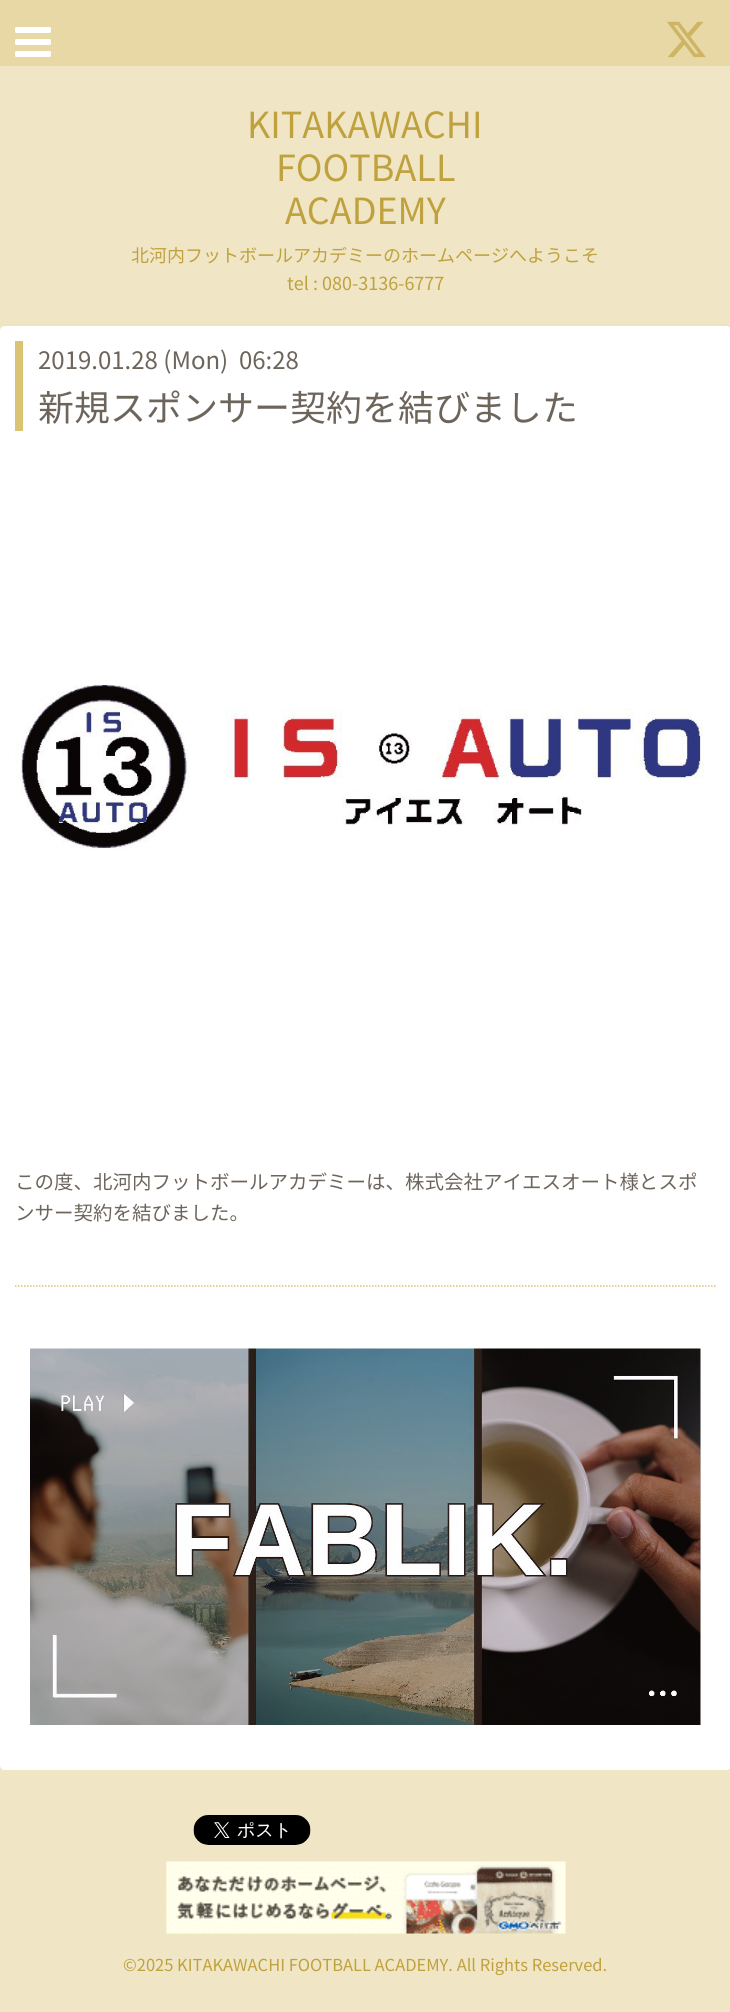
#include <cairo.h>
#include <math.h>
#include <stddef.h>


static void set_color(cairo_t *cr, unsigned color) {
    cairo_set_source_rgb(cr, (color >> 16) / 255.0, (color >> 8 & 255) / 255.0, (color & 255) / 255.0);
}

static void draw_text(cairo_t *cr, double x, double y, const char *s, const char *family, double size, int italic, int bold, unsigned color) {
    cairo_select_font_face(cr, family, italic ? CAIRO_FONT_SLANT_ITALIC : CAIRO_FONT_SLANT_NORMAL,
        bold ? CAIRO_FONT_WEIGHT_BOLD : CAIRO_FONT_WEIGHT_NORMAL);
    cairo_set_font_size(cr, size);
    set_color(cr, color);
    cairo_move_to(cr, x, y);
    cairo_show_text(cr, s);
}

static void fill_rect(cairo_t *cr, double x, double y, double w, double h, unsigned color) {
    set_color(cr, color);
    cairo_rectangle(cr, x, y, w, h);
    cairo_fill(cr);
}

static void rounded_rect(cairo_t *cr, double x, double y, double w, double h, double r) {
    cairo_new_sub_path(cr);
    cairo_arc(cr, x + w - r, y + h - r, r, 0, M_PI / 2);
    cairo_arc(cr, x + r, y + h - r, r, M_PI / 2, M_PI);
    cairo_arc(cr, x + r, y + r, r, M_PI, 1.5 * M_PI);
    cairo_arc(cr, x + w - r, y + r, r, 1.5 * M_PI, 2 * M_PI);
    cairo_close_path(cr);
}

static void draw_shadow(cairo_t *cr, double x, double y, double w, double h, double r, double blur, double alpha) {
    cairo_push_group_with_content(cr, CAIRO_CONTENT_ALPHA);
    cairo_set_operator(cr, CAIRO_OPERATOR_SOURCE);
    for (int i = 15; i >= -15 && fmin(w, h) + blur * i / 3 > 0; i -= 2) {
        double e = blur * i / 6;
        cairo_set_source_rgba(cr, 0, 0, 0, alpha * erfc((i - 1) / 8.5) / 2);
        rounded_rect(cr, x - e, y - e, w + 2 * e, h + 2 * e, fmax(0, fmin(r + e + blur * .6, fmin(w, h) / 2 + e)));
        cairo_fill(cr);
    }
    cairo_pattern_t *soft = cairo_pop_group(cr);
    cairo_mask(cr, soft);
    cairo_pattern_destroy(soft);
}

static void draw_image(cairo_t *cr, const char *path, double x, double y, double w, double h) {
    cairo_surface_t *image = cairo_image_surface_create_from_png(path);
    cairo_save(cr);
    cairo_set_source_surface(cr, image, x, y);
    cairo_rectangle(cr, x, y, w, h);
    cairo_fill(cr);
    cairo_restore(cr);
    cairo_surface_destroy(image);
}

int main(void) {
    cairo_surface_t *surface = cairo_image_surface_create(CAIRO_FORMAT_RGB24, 730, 2012);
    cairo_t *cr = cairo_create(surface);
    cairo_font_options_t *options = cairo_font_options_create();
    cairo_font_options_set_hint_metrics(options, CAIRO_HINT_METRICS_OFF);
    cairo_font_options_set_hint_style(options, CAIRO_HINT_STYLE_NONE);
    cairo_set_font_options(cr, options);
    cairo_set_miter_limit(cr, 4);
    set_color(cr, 0xF0E6C5);
    cairo_paint(cr);
    fill_rect(cr, 0, 0, 730, 66, 0xE8D8A5);
    draw_image(cr, "assets/img1.png", 15, 27, 36, 30);
    draw_image(cr, "assets/img2.png", 667, 21, 39, 37);
    draw_text(cr, 247, 138, "KITAKAWACHI", "Noto Sans JP", 36, 0, 0, 0xBFA13D);
    draw_text(cr, 276, 181, "FOOTBALL", "Noto Sans JP", 36, 0, 0, 0xBFA13D);
    draw_text(cr, 285, 224, "ACADEMY", "Noto Sans JP", 36, 0, 0, 0xBFA13D);
    draw_text(cr, 131, 262, "北河内フットボールアカデミーのホームページへようこそ", "Noto Sans JP", 18, 0, 0, 0xBFA13D);
    draw_text(cr, 287, 290, "tel : 080-3136-6777", "Noto Sans JP", 18, 0, 0, 0xBFA13D);
    set_color(cr, 0xE8D8A5);
    draw_shadow(cr, 0, 330, 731, 1007, 5, 7.5, 0.4);
    set_color(cr, 0xFFFFFF);
    cairo_new_path(cr);
    cairo_move_to(cr, 5, 326);
    cairo_line_to(cr, 726, 326);
    cairo_curve_to(cr, 729, 326, 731, 328, 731, 331);
    cairo_line_to(cr, 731, 1332);
    cairo_line_to(cr, 0, 1332);
    cairo_line_to(cr, 0, 331);
    cairo_curve_to(cr, 0, 328, 2, 326, 5, 326);
    cairo_close_path(cr);
    cairo_fill(cr);
    cairo_new_path(cr);
    cairo_move_to(cr, 15, 1286);
    cairo_line_to(cr, 715.5, 1286);
    set_color(cr, 0xDBC374);
    cairo_set_line_width(cr, 1.5);
    cairo_set_dash(cr, (double[]){1.5, 1.5}, 2, 0);
    cairo_stroke(cr);
    fill_rect(cr, 15, 341, 8, 90, 0xDBC374);
    draw_text(cr, 38, 369, "2019.01.28 (Mon)  06:28", "Noto Sans JP", 24, 0, 0, 0x6D655B);
    draw_text(cr, 38, 421, "新規スポンサー契約を結びました", "Noto Sans JP", 36, 0, 0, 0x6D655B);
    draw_image(cr, "assets/img3.png", 15, 685, 689, 164);
    draw_text(cr, 15, 1189, "この度、北河内フットボールアカデミーは、株式会社アイエスオート様とスポ", "Noto Sans JP", 19.5, 0, 0, 0x6D655B);
    draw_text(cr, 15, 1220, "ンサー契約を結びました。", "Noto Sans JP", 19.5, 0, 0, 0x6D655B);
    set_color(cr, 0xFFFFFF);
    cairo_new_path(cr);
    cairo_move_to(cr, 0, 1332);
    cairo_line_to(cr, 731, 1332);
    cairo_line_to(cr, 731, 1765);
    cairo_curve_to(cr, 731, 1768, 729, 1770, 726, 1770);
    cairo_line_to(cr, 5, 1770);
    cairo_curve_to(cr, 2, 1770, 0, 1768, 0, 1765);
    cairo_close_path(cr);
    cairo_fill(cr);
    draw_image(cr, "assets/img4.png", 30, 1348, 671, 377);
    draw_image(cr, "assets/img5.png", 193, 1815, 118, 30);
    draw_image(cr, "assets/img6.png", 166, 1861, 400, 74);
    draw_text(cr, 123, 1971, "©2025 KITAKAWACHI FOOTBALL ACADEMY. All Rights Reserved.", "Noto Sans JP", 16.5, 0, 0, 0xBFA13D);
    cairo_surface_write_to_png(surface, "output.png");
    cairo_font_options_destroy(options);
    cairo_destroy(cr);
    cairo_surface_destroy(surface);
    return 0;
}
